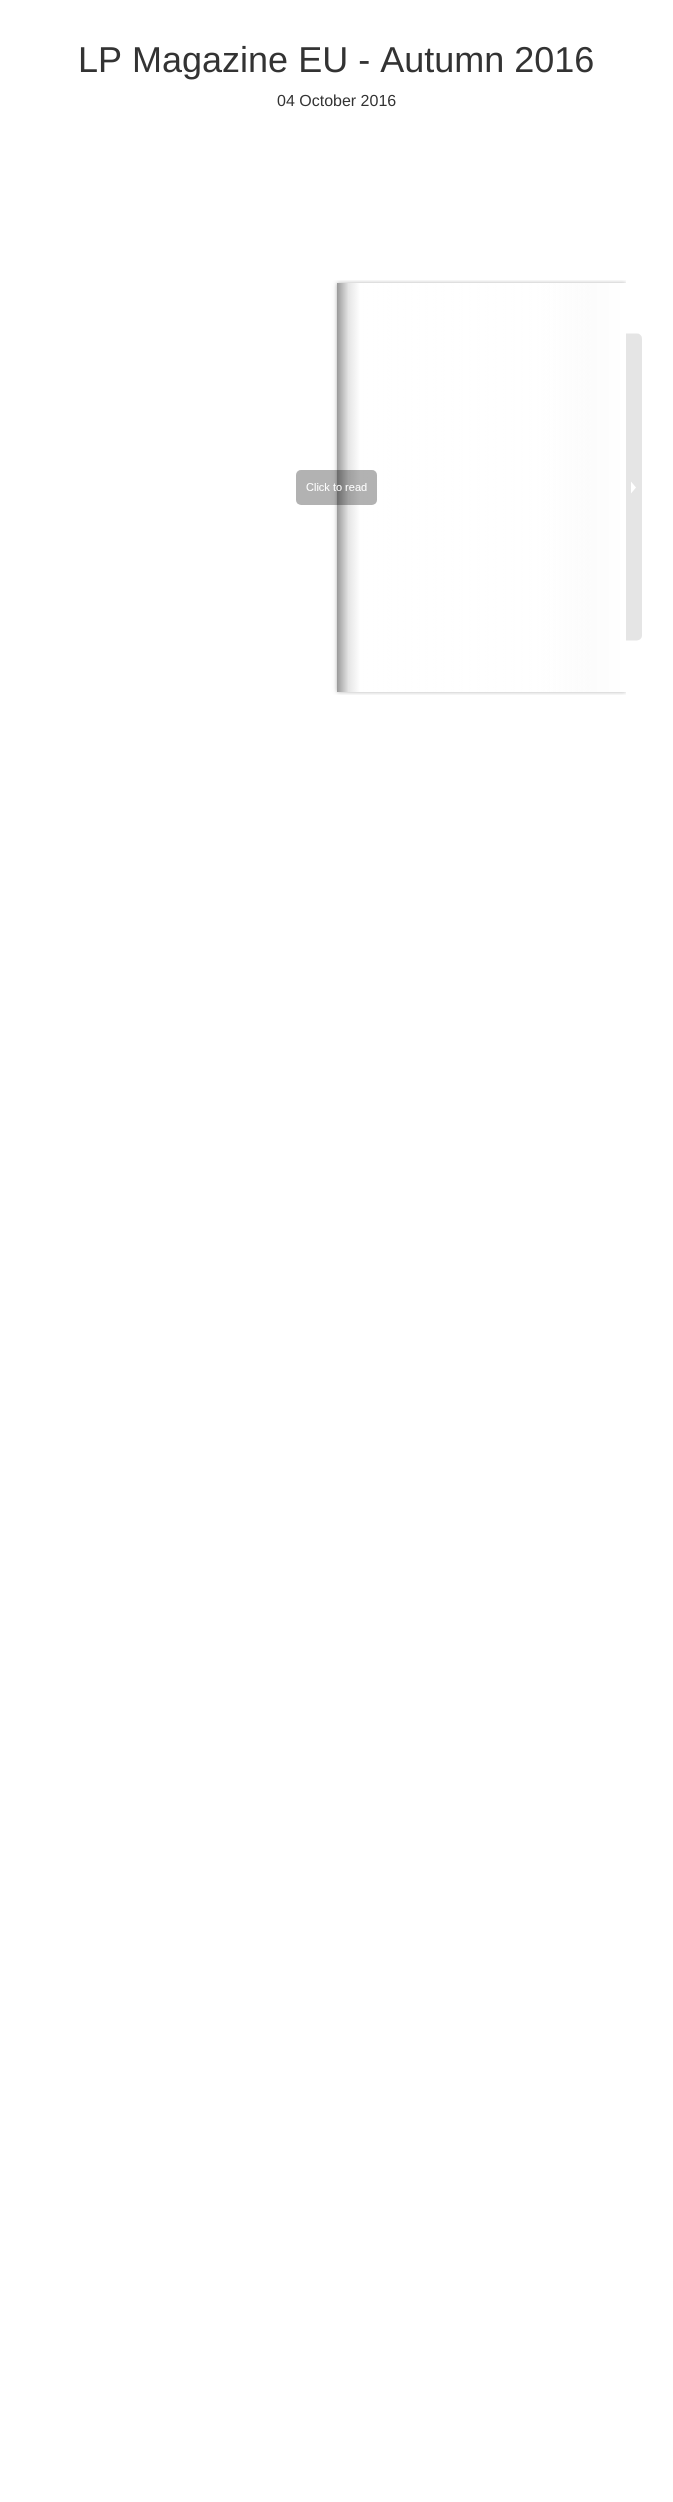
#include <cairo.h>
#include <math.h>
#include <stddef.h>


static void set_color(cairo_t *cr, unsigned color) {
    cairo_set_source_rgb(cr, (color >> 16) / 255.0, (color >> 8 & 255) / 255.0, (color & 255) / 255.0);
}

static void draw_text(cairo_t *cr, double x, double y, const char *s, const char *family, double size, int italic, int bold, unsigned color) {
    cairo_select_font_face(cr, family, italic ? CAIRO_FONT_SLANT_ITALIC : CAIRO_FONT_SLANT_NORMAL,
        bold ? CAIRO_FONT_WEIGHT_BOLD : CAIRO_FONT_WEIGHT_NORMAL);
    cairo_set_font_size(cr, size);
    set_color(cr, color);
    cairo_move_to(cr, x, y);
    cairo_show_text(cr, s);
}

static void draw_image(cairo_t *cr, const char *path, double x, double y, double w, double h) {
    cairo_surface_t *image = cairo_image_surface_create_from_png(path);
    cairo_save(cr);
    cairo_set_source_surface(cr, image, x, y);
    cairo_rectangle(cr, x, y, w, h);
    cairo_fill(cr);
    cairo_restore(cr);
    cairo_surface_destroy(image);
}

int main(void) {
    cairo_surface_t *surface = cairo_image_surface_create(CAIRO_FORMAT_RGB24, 673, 2502);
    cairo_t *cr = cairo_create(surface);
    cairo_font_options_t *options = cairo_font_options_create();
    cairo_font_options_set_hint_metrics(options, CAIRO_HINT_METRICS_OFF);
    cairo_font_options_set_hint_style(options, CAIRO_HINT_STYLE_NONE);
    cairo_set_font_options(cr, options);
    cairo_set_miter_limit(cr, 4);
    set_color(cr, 0xFFFFFF);
    cairo_paint(cr);
    draw_text(cr, 78, 72, "LP Magazine EU - Autumn 2016", "Liberation Sans", 36, 0, 0, 0x333333);
    draw_text(cr, 277, 106, "04 October 2016", "Liberation Sans", 16, 0, 0, 0x333333);
    draw_image(cr, "assets/img1.png", 296, 280, 346, 415);
    cairo_surface_write_to_png(surface, "output.png");
    cairo_font_options_destroy(options);
    cairo_destroy(cr);
    cairo_surface_destroy(surface);
    return 0;
}
